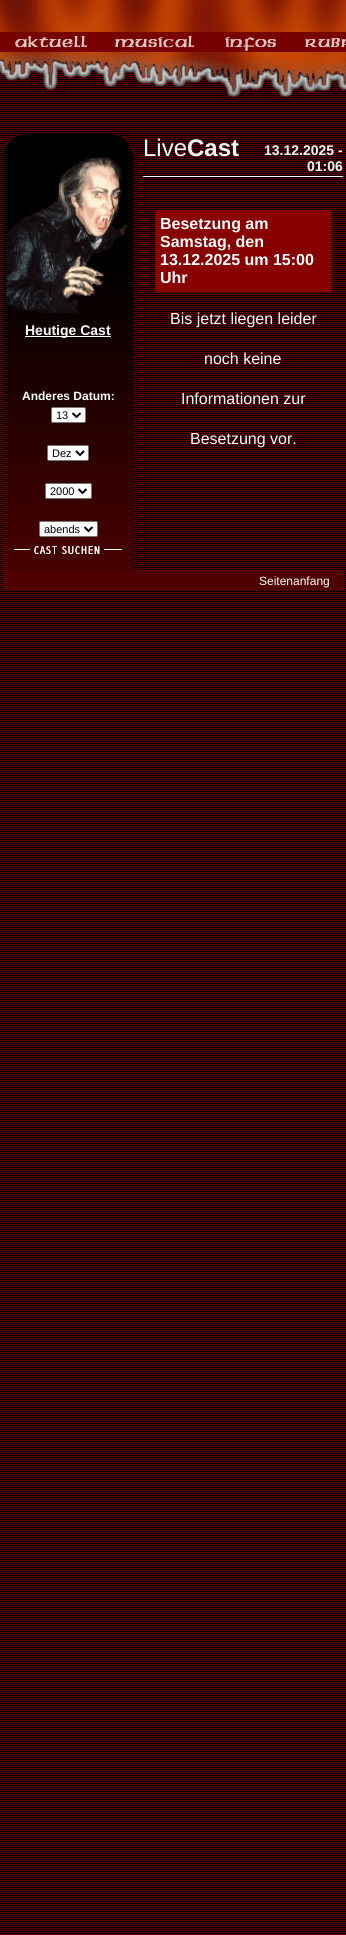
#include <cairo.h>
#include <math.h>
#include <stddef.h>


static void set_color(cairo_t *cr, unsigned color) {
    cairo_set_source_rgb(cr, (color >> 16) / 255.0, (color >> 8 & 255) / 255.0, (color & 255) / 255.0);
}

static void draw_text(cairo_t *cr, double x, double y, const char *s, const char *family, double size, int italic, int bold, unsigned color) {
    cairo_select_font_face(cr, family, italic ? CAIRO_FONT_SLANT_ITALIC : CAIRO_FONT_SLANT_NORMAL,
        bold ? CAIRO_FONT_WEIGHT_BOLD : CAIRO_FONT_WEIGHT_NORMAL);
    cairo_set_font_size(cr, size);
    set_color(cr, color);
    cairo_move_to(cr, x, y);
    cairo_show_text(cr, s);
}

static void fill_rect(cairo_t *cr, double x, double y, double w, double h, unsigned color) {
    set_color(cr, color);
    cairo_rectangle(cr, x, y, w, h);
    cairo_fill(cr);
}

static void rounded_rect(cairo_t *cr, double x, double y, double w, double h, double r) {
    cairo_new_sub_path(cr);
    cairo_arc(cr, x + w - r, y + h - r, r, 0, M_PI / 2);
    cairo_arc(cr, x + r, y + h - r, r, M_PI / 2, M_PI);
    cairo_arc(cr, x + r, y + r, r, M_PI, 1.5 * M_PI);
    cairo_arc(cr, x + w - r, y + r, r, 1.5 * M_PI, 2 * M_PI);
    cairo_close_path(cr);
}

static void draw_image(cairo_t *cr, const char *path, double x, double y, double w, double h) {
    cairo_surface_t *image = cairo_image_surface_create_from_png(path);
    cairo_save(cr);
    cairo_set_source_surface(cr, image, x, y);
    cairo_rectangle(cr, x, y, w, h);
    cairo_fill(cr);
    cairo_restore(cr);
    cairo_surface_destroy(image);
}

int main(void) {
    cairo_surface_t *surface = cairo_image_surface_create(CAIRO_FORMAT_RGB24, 346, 1935);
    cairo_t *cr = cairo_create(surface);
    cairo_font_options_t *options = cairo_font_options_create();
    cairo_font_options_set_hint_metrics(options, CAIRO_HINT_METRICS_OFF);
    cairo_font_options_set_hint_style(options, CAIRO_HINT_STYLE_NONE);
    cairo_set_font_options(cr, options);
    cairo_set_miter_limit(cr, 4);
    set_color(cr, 0xFFFFFF);
    cairo_paint(cr);
    draw_image(cr, "assets/img1.png", 0, 70, 346, 1865);
    draw_image(cr, "assets/img2.png", 0, 0, 346, 97);
    draw_image(cr, "assets/img3.png", 0, 32, 100, 20);
    draw_image(cr, "assets/img4.png", 100, 32, 110, 20);
    draw_image(cr, "assets/img5.png", 210, 32, 80, 20);
    draw_image(cr, "assets/img6.png", 290, 32, 56, 20);
    draw_text(cr, 143, 156, "Live", "Liberation Sans", 24, 0, 0, 0xFFFFFF);
    draw_text(cr, 187, 156, "Cast", "Liberation Sans", 24, 0, 1, 0xFFFFFF);
    draw_text(cr, 264, 155, "13.12.2025 -", "Liberation Sans", 14, 0, 1, 0xFFFFFF);
    draw_text(cr, 307, 171, "01:06", "Liberation Sans", 14, 0, 1, 0xFFFFFF);
    draw_image(cr, "assets/img7.png", 3, 154, 130, 417);
    draw_image(cr, "assets/img8.png", 3, 134, 130, 20);
    draw_image(cr, "assets/img9.png", 6, 157, 122, 156);
    fill_rect(cr, 25, 336, 86, 1, 0xFFFFFF);
    draw_text(cr, 25, 335, "Heutige Cast", "Liberation Sans", 14, 0, 1, 0xFFFFFF);
    draw_text(cr, 22, 400, "Anderes Datum:", "Liberation Sans", 12, 0, 1, 0xFFFFFF);
    rounded_rect(cr, 51.5, 407.5, 34, 15, 1.5);
    cairo_fill_preserve(cr);
    set_color(cr, 0x767676);
    cairo_set_line_width(cr, 1);
    cairo_stroke(cr);
    cairo_new_path(cr);
    cairo_move_to(cr, 72.5, 413);
    cairo_line_to(cr, 76.5, 417);
    cairo_line_to(cr, 80.5, 413);
    set_color(cr, 0x000000);
    cairo_set_line_width(cr, 2);
    cairo_stroke(cr);
    draw_text(cr, 56, 419, "13", "Liberation Sans", 11, 0, 0, 0x000000);
    set_color(cr, 0xFFFFFF);
    rounded_rect(cr, 47.5, 445.5, 41, 15, 1.5);
    cairo_fill_preserve(cr);
    set_color(cr, 0x767676);
    cairo_set_line_width(cr, 1);
    cairo_stroke(cr);
    cairo_new_path(cr);
    cairo_move_to(cr, 76, 451);
    cairo_line_to(cr, 80, 455);
    cairo_line_to(cr, 84, 451);
    set_color(cr, 0x000000);
    cairo_set_line_width(cr, 2);
    cairo_stroke(cr);
    draw_text(cr, 52, 457, "Dez", "Liberation Sans", 11, 0, 0, 0x000000);
    set_color(cr, 0xFFFFFF);
    rounded_rect(cr, 45.5, 483.5, 46, 15, 1.5);
    cairo_fill_preserve(cr);
    set_color(cr, 0x767676);
    cairo_set_line_width(cr, 1);
    cairo_stroke(cr);
    cairo_new_path(cr);
    cairo_move_to(cr, 78.5, 489);
    cairo_line_to(cr, 82.5, 493);
    cairo_line_to(cr, 86.5, 489);
    set_color(cr, 0x000000);
    cairo_set_line_width(cr, 2);
    cairo_stroke(cr);
    draw_text(cr, 50, 495, "2000", "Liberation Sans", 11, 0, 0, 0x000000);
    set_color(cr, 0xFFFFFF);
    rounded_rect(cr, 39.5, 521.5, 58, 15, 1.5);
    cairo_fill_preserve(cr);
    set_color(cr, 0x767676);
    cairo_set_line_width(cr, 1);
    cairo_stroke(cr);
    cairo_new_path(cr);
    cairo_move_to(cr, 84.5, 527);
    cairo_line_to(cr, 88.5, 531);
    cairo_line_to(cr, 92.5, 527);
    set_color(cr, 0x000000);
    cairo_set_line_width(cr, 2);
    cairo_stroke(cr);
    draw_text(cr, 44, 533, "abends", "Liberation Sans", 11, 0, 0, 0x000000);
    draw_image(cr, "assets/img10.png", 14, 546, 108, 8);
    fill_rect(cr, 143, 176, 200, 1, 0xFFFFFF);
    fill_rect(cr, 155, 210, 176, 82, 0x880000);
    draw_text(cr, 160, 229, "Besetzung am", "Liberation Sans", 16, 0, 1, 0xFFFFFF);
    draw_text(cr, 160, 247, "Samstag, den", "Liberation Sans", 16, 0, 1, 0xFFFFFF);
    draw_text(cr, 160, 265, "13.12.2025 um 15:00", "Liberation Sans", 16, 0, 1, 0xFFFFFF);
    draw_text(cr, 160, 283, "Uhr", "Liberation Sans", 16, 0, 1, 0xFFFFFF);
    draw_text(cr, 170, 324, "Bis jetzt liegen leider", "Liberation Sans", 16, 0, 0, 0xFFFFFF);
    draw_text(cr, 204, 364, "noch keine", "Liberation Sans", 16, 0, 0, 0xFFFFFF);
    draw_text(cr, 181, 404, "Informationen zur", "Liberation Sans", 16, 0, 0, 0xFFFFFF);
    draw_text(cr, 190, 444, "Besetzung vor.", "Liberation Sans", 16, 0, 0, 0xFFFFFF);
    draw_image(cr, "assets/img11.png", 3, 571, 130, 20);
    fill_rect(cr, 133, 571, 210, 20, 0x500000);
    draw_text(cr, 259, 585, "Seitenanfang", "Liberation Sans", 12, 0, 0, 0xFFFFFF);
    cairo_surface_write_to_png(surface, "output.png");
    cairo_font_options_destroy(options);
    cairo_destroy(cr);
    cairo_surface_destroy(surface);
    return 0;
}
